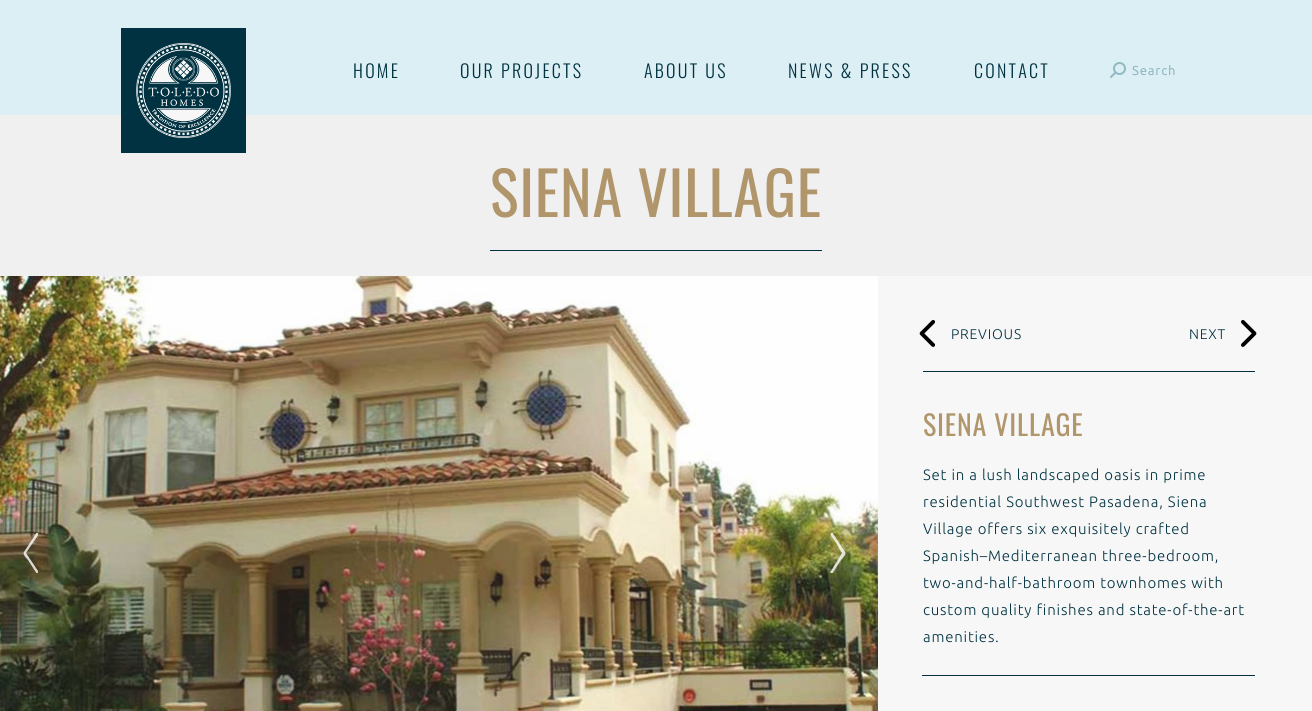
#include <cairo.h>
#include <math.h>
#include <stddef.h>


static void set_color(cairo_t *cr, unsigned color) {
    cairo_set_source_rgb(cr, (color >> 16) / 255.0, (color >> 8 & 255) / 255.0, (color & 255) / 255.0);
}

static void draw_spaced(cairo_t *cr, double x, double y, const char *s, double letter, double word) {
    cairo_move_to(cr, x, y);
    while (*s) {
        char ch[5] = {0};
        int n = 0;
        do ch[n++] = *s++; while ((*s & 0xC0) == 0x80);
        cairo_show_text(cr, ch);
        cairo_rel_move_to(cr, letter + word * (*ch == ' '), 0);
    }
}

static void fill_rect(cairo_t *cr, double x, double y, double w, double h, unsigned color) {
    set_color(cr, color);
    cairo_rectangle(cr, x, y, w, h);
    cairo_fill(cr);
}

static void draw_image(cairo_t *cr, const char *path, double x, double y, double w, double h) {
    cairo_surface_t *image = cairo_image_surface_create_from_png(path);
    cairo_save(cr);
    cairo_set_source_surface(cr, image, x, y);
    cairo_rectangle(cr, x, y, w, h);
    cairo_fill(cr);
    cairo_restore(cr);
    cairo_surface_destroy(image);
}

int main(void) {
    cairo_surface_t *surface = cairo_image_surface_create(CAIRO_FORMAT_RGB24, 1312, 711);
    cairo_t *cr = cairo_create(surface);
    cairo_font_options_t *options = cairo_font_options_create();
    cairo_font_options_set_hint_metrics(options, CAIRO_HINT_METRICS_OFF);
    cairo_font_options_set_hint_style(options, CAIRO_HINT_STYLE_NONE);
    cairo_set_font_options(cr, options);
    cairo_set_miter_limit(cr, 4);
    set_color(cr, 0xF7F7F7);
    cairo_paint(cr);
    fill_rect(cr, 0, 0, 1312, 115, 0xDCEFF5);
    fill_rect(cr, 0, 115, 1312, 161, 0xF0F0F0);
    fill_rect(cr, 121, 28, 125, 125, 0x003241);
    draw_image(cr, "assets/img1.png", 136, 43, 95, 95);
    cairo_select_font_face(cr, "Oswald Light", CAIRO_FONT_SLANT_NORMAL, CAIRO_FONT_WEIGHT_NORMAL);
    cairo_set_font_size(cr, 18);
    draw_spaced(cr, 353, 78, "HOME", 2.25, 0);
    draw_spaced(cr, 460, 78, "OUR PROJECTS", 2.25, 0);
    draw_spaced(cr, 644, 78, "ABOUT US", 2.25, 0);
    draw_spaced(cr, 788, 78, "NEWS & PRESS", 2.25, 0);
    draw_spaced(cr, 974, 78, "CONTACT", 2.25, 0);
    draw_image(cr, "assets/img2.png", 1110, 62, 16, 16);
    cairo_select_font_face(cr, "Ubuntu", CAIRO_FONT_SLANT_NORMAL, CAIRO_FONT_WEIGHT_NORMAL);
    cairo_set_font_size(cr, 13);
    set_color(cr, 0x91B9C3);
    draw_spaced(cr, 1132, 75, "Search", 0.8, 0);
    fill_rect(cr, 490, 250, 332, 1, 0x003241);
    cairo_select_font_face(cr, "Oswald", CAIRO_FONT_SLANT_NORMAL, CAIRO_FONT_WEIGHT_NORMAL);
    cairo_set_font_size(cr, 60);
    set_color(cr, 0xB1966C);
    draw_spaced(cr, 490, 217, "SIENA VILLAGE", 0.8, 0);
    draw_image(cr, "assets/img3.png", 0, 276, 878, 435);
    cairo_save(cr);
    cairo_rectangle(cr, 21, 533, 40, 40);
    cairo_clip(cr);
    cairo_set_source_rgba(cr, 1, 1, 1, 0.8);
    cairo_new_path(cr);
    cairo_move_to(cr, 38, 571);
    cairo_curve_to(cr, 38, 571, 38, 574, 37, 574);
    cairo_line_to(cr, 28, 560);
    cairo_curve_to(cr, 27, 559, 22, 554, 24, 552);
    cairo_line_to(cr, 37, 532);
    cairo_line_to(cr, 38, 533);
    cairo_curve_to(cr, 39, 535, 35, 540, 34, 541);
    cairo_line_to(cr, 26, 553);
    cairo_close_path(cr);
    cairo_fill(cr);
    cairo_restore(cr);
    cairo_save(cr);
    cairo_rectangle(cr, 808, 533, 40, 40);
    cairo_clip(cr);
    cairo_set_source_rgba(cr, 1, 1, 1, 0.8);
    cairo_new_path(cr);
    cairo_move_to(cr, 831, 571);
    cairo_line_to(cr, 842, 553);
    cairo_line_to(cr, 835, 541);
    cairo_curve_to(cr, 834, 540, 829, 535, 831, 533);
    cairo_line_to(cr, 832, 532);
    cairo_line_to(cr, 845, 552);
    cairo_curve_to(cr, 847, 554, 842, 559, 841, 560);
    cairo_line_to(cr, 832, 574);
    cairo_curve_to(cr, 830, 574, 830, 571, 831, 571);
    cairo_close_path(cr);
    cairo_fill(cr);
    cairo_restore(cr);
    fill_rect(cr, 923, 371, 332, 1, 0x003241);
    draw_image(cr, "assets/img4.png", 919, 320, 17, 27);
    cairo_select_font_face(cr, "Ubuntu Light", CAIRO_FONT_SLANT_NORMAL, CAIRO_FONT_WEIGHT_NORMAL);
    cairo_set_font_size(cr, 14);
    draw_spaced(cr, 951, 339, "PREVIOUS", 0.8, 0);
    draw_spaced(cr, 1189, 339, "NEXT", 0.8, 0);
    draw_image(cr, "assets/img5.png", 1241, 320, 16, 27);
    cairo_select_font_face(cr, "Oswald", CAIRO_FONT_SLANT_NORMAL, CAIRO_FONT_WEIGHT_NORMAL);
    cairo_set_font_size(cr, 28);
    set_color(cr, 0xB1966C);
    draw_spaced(cr, 923, 436, "SIENA VILLAGE", 0.8, 0);
    cairo_select_font_face(cr, "Ubuntu Light", CAIRO_FONT_SLANT_NORMAL, CAIRO_FONT_WEIGHT_NORMAL);
    cairo_set_font_size(cr, 15);
    set_color(cr, 0x003241);
    draw_spaced(cr, 923, 480, "Set in a lush landscaped oasis in prime", 0.8, 0);
    draw_spaced(cr, 923, 507, "residential Southwest Pasadena, Siena", 0.8, 0);
    draw_spaced(cr, 923, 534, "Village offers six exquisitely crafted", 0.8, 0);
    draw_spaced(cr, 923, 561, "Spanish–Mediterranean three-bedroom,", 0.8, 0);
    draw_spaced(cr, 923, 588, "two-and-half-bathroom townhomes with", 0.8, 0);
    draw_spaced(cr, 923, 615, "custom quality finishes and state-of-the-art", 0.8, 0);
    draw_spaced(cr, 923, 642, "amenities.", 0.8, 0);
    fill_rect(cr, 922, 675, 333, 1, 0x003241);
    cairo_surface_write_to_png(surface, "output.png");
    cairo_font_options_destroy(options);
    cairo_destroy(cr);
    cairo_surface_destroy(surface);
    return 0;
}
